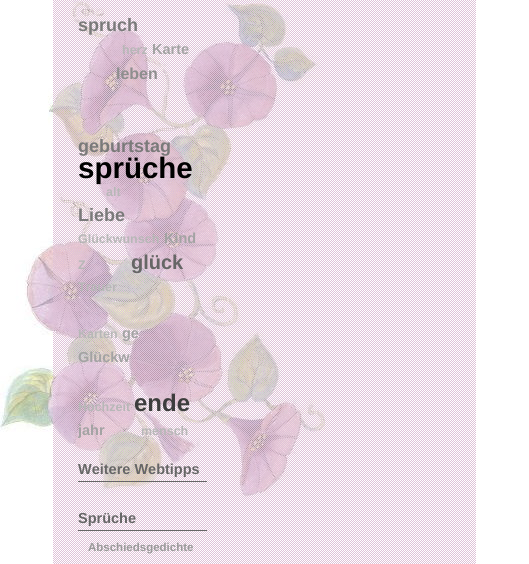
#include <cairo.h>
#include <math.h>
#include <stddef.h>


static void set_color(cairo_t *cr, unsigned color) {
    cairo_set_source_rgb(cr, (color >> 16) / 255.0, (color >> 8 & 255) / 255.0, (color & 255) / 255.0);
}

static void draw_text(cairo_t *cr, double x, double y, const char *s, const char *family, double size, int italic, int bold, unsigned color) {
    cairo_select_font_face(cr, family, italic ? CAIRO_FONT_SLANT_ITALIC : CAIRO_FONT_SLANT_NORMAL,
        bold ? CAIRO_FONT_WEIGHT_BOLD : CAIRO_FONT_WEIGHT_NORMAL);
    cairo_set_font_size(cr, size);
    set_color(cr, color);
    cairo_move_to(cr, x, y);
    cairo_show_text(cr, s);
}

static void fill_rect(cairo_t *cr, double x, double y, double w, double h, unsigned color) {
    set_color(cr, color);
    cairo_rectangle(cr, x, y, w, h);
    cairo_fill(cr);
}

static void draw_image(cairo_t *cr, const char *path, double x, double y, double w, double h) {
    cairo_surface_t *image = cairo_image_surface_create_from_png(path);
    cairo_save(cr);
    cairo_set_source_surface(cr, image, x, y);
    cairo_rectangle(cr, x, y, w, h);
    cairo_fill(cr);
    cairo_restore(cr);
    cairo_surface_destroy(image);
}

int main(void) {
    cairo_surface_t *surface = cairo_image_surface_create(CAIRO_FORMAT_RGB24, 529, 564);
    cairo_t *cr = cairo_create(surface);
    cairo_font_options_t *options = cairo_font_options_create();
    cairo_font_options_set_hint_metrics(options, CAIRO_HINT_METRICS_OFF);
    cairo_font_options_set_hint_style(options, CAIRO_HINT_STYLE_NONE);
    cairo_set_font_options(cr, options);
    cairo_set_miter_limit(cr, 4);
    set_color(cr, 0xFFFFFF);
    cairo_paint(cr);
    draw_image(cr, "assets/img1.png", 0, 0, 325, 500);
    draw_image(cr, "assets/img2.png", 53, 0, 423, 564);
    draw_text(cr, 78, 31, "spruch", "Liberation Sans", 18, 0, 1, 0x7A7A7A);
    draw_text(cr, 122, 54, "herz", "Liberation Sans", 12.5, 0, 1, 0xB7B7B7);
    draw_text(cr, 152, 54, "Karte", "Liberation Sans", 14.5, 0, 1, 0xA3A3A3);
    draw_text(cr, 116, 79, "leben", "Liberation Sans", 16, 0, 1, 0x8E8E8E);
    draw_text(cr, 78, 152, "geburtstag", "Liberation Sans", 18, 0, 1, 0x7A7A7A);
    draw_text(cr, 78, 178, "sprüche", "Liberation Sans", 29.5, 0, 1, 0x000000);
    draw_text(cr, 106, 196, "alt", "Liberation Sans", 12.5, 0, 1, 0xB7B7B7);
    draw_text(cr, 78, 221, "Liebe", "Liberation Sans", 18, 0, 1, 0x7A7A7A);
    draw_text(cr, 78, 243, "Glückwunsch", "Liberation Sans", 12.5, 0, 1, 0xB7B7B7);
    draw_text(cr, 164, 243, "Kind", "Liberation Sans", 14.5, 0, 1, 0xA3A3A3);
    draw_text(cr, 78, 269, "Z", "Liberation Sans", 12.5, 0, 1, 0xB7B7B7);
    draw_text(cr, 131, 269, "glück", "Liberation Sans", 20, 0, 1, 0x666666);
    draw_text(cr, 78, 291, "Trauer", "Liberation Sans", 12.5, 0, 1, 0xB7B7B7);
    draw_text(cr, 78, 338, "Karten", "Liberation Sans", 12.5, 0, 1, 0xB7B7B7);
    draw_text(cr, 122, 338, "ge", "Liberation Sans", 14.5, 0, 1, 0xA3A3A3);
    draw_text(cr, 78, 362, "Glückw", "Liberation Sans", 14.5, 0, 1, 0xA3A3A3);
    draw_text(cr, 78, 411, "Hochzeit", "Liberation Sans", 12.5, 0, 1, 0xB7B7B7);
    draw_text(cr, 134, 411, "ende", "Liberation Sans", 24, 0, 1, 0x3D3D3D);
    draw_text(cr, 78, 435, "jahr", "Liberation Sans", 14.5, 0, 1, 0xA3A3A3);
    draw_text(cr, 141, 435, "mensch", "Liberation Sans", 12.5, 0, 1, 0xB7B7B7);
    fill_rect(cr, 78, 481, 129, 1, 0x666666);
    draw_text(cr, 78, 474, "Weitere Webtipps", "Liberation Sans", 14.5, 0, 1, 0x666666);
    fill_rect(cr, 78, 530, 129, 1, 0x666666);
    draw_text(cr, 78, 523, "Sprüche", "Liberation Sans", 14.5, 0, 1, 0x666666);
    draw_text(cr, 88, 551, "Abschiedsgedichte", "Liberation Sans", 11.5, 0, 1, 0x999999);
    cairo_surface_write_to_png(surface, "output.png");
    cairo_font_options_destroy(options);
    cairo_destroy(cr);
    cairo_surface_destroy(surface);
    return 0;
}
